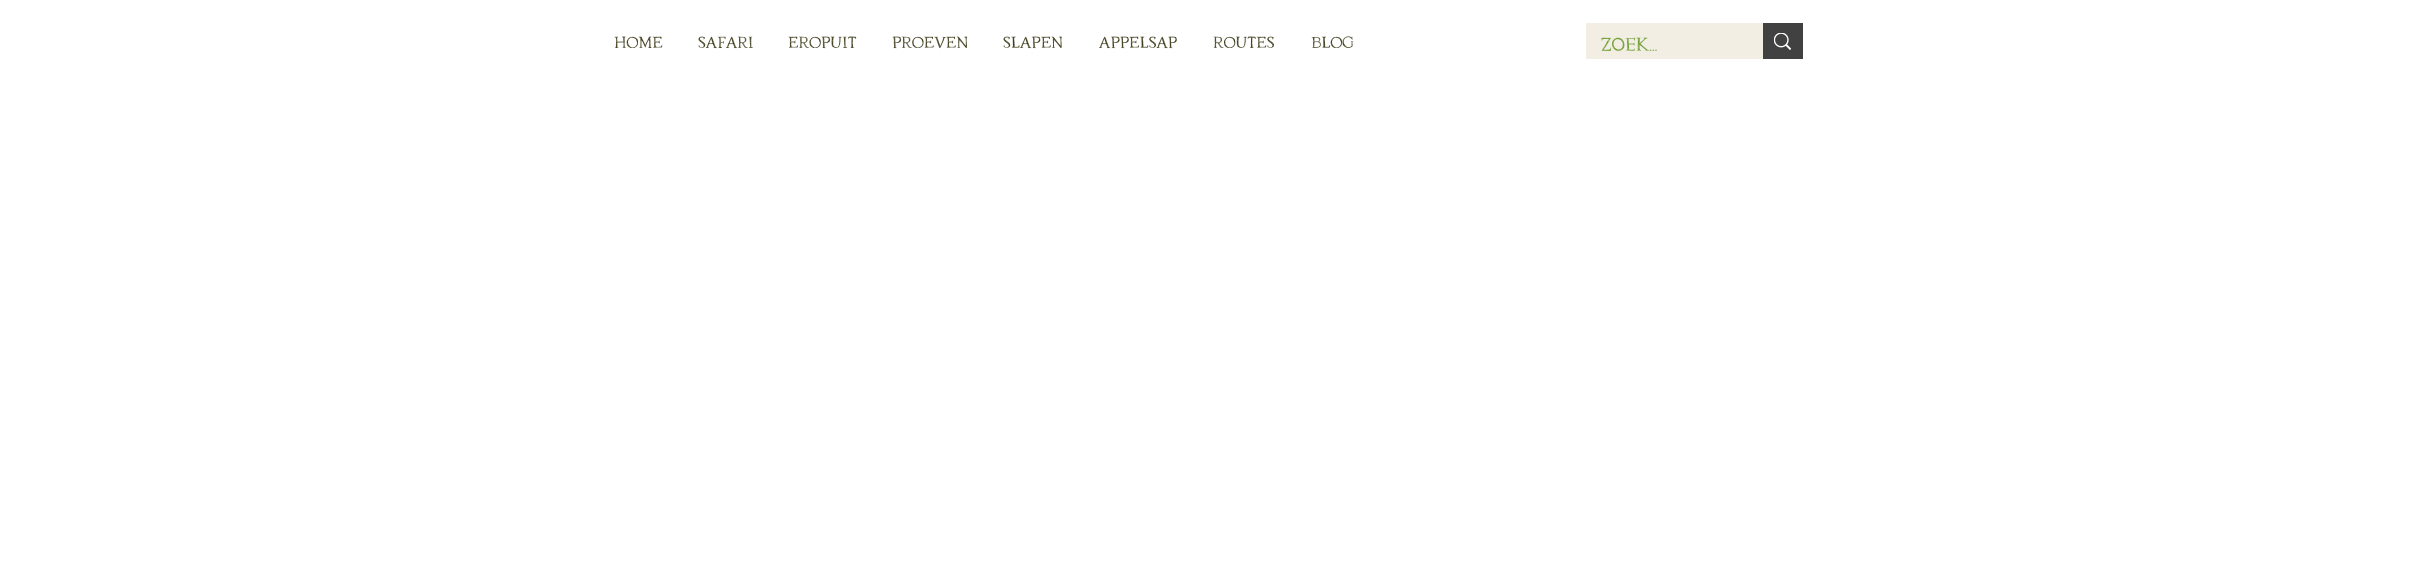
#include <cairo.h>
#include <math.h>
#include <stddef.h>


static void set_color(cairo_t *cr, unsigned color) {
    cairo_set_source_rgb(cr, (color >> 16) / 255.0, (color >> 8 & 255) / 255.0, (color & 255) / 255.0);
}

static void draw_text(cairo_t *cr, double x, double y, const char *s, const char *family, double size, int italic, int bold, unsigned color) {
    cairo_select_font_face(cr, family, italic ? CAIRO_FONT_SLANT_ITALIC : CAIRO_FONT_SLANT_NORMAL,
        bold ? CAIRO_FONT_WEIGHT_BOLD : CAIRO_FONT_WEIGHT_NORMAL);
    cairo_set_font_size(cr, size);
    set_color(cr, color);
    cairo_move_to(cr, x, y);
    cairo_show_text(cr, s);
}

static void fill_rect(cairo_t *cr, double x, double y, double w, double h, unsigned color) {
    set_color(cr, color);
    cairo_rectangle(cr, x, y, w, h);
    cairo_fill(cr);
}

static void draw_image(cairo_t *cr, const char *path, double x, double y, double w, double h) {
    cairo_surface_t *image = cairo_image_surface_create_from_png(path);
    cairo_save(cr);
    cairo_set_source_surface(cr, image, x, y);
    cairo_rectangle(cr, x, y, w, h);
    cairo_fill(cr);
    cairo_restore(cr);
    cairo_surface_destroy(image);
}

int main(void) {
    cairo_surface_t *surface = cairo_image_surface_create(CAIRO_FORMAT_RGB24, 2416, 577);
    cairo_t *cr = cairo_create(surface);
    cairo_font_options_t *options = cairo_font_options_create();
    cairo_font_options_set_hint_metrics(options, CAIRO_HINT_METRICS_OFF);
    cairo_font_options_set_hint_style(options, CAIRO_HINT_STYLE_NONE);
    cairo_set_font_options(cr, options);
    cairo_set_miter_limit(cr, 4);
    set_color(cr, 0xFFFFFF);
    cairo_paint(cr);
    draw_text(cr, 614, 48, "HOME", "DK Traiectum", 16.25, 0, 0, 0x3B3916);
    draw_text(cr, 698, 48, "SAFARI", "DK Traiectum", 16.25, 0, 0, 0x3B3916);
    draw_text(cr, 788, 48, "EROPUIT", "DK Traiectum", 16.25, 0, 0, 0x3B3916);
    draw_text(cr, 892, 48, "PROEVEN", "DK Traiectum", 16.25, 0, 0, 0x3B3916);
    draw_text(cr, 1003, 48, "SLAPEN", "DK Traiectum", 16.25, 0, 0, 0x3B3916);
    draw_text(cr, 1099, 48, "APPELSAP", "DK Traiectum", 16.25, 0, 0, 0x3B3916);
    draw_text(cr, 1213, 48, "ROUTES", "DK Traiectum", 16.25, 0, 0, 0x3B3916);
    draw_text(cr, 1311, 48, "BLOG", "DK Traiectum", 16.25, 0, 0, 0x3B3916);
    fill_rect(cr, 1586, 23, 177, 36, 0xF2EEE4);
    draw_text(cr, 1601, 51, "Zoek...", "DK Traiectum", 19, 0, 0, 0x6C9C30);
    fill_rect(cr, 1763, 23, 40, 36, 0x414141);
    draw_image(cr, "assets/img1.png", 1774, 33, 17, 17);
    cairo_surface_write_to_png(surface, "output.png");
    cairo_font_options_destroy(options);
    cairo_destroy(cr);
    cairo_surface_destroy(surface);
    return 0;
}
